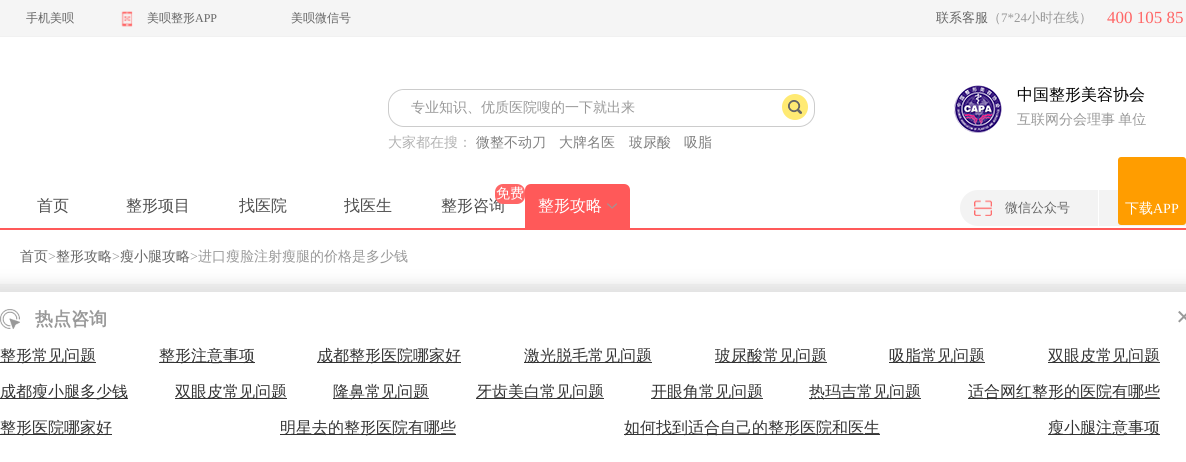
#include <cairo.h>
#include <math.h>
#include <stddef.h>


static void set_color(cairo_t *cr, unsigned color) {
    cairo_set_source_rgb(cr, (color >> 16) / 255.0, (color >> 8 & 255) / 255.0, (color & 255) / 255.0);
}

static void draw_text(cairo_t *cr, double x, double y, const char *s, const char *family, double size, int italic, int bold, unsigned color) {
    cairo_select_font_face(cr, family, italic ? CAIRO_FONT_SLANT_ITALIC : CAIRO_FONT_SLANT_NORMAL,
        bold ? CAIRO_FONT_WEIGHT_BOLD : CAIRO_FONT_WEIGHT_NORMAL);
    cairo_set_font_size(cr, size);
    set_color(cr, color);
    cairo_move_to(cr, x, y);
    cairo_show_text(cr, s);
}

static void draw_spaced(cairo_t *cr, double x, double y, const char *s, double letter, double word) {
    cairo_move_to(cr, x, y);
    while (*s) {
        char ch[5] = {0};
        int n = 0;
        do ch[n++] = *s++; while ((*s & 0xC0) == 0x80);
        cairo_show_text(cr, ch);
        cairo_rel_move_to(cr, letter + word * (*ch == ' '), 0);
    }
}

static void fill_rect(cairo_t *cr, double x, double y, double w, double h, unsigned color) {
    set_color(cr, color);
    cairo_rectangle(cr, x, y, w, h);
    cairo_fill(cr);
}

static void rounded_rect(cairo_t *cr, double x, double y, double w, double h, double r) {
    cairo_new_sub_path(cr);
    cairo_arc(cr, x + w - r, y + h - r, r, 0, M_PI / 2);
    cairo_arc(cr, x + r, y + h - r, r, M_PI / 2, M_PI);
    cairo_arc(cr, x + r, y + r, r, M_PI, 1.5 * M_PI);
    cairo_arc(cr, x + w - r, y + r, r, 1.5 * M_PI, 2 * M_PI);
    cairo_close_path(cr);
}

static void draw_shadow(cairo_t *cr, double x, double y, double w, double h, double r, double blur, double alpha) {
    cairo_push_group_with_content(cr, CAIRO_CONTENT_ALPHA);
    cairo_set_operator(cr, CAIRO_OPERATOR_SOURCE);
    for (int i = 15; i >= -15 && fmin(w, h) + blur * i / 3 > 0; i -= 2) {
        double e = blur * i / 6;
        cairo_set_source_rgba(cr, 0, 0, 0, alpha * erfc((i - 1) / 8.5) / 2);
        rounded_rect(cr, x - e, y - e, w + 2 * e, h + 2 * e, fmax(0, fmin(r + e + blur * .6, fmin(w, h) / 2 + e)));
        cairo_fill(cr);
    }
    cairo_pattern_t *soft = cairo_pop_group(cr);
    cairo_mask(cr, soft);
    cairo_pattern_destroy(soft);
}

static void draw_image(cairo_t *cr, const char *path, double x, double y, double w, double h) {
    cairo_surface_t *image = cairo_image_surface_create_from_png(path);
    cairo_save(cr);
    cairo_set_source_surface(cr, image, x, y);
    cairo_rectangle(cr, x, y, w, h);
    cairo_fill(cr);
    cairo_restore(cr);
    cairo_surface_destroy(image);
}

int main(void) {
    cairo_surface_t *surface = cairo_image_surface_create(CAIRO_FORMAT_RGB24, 1186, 462);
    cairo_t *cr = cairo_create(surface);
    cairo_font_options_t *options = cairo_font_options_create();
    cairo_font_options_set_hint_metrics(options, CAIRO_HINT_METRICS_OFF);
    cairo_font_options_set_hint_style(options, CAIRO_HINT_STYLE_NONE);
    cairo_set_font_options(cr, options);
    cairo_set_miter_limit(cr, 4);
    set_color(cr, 0xF5F5F5);
    cairo_paint(cr);
    fill_rect(cr, 0, 36, 1186, 1, 0xF1F1F1);
    draw_text(cr, 26, 22, "手机美呗", "WenQuanYi Zen Hei Medium", 12, 0, 0, 0x666666);
    draw_image(cr, "assets/img1.png", 121, 11, 12, 16);
    draw_text(cr, 147, 22, "美呗整形", "WenQuanYi Zen Hei Medium", 12, 0, 0, 0x666666);
    draw_text(cr, 195, 22, "APP", "Liberation Serif", 12, 0, 0, 0x666666);
    draw_text(cr, 291, 22, "美呗微信号", "WenQuanYi Zen Hei Medium", 12, 0, 0, 0x666666);
    draw_text(cr, 936, 22, "联系客服", "WenQuanYi Zen Hei Medium", 13, 0, 0, 0x666666);
    draw_text(cr, 988, 22, "（", "WenQuanYi Zen Hei Medium", 13, 0, 0, 0x999999);
    draw_text(cr, 1001, 22, "7*24", "Liberation Serif", 13, 0, 0, 0x999999);
    draw_text(cr, 1027, 22, "小时在线）", "WenQuanYi Zen Hei Medium", 13, 0, 0, 0x999999);
    draw_text(cr, 1107, 23, "400 105 85", "Liberation Serif", 17, 0, 0, 0xFF6666);
    fill_rect(cr, 0, 37, 1186, 191, 0xFFFFFF);
    fill_rect(cr, 0, 228, 1186, 2, 0xFF5959);
    rounded_rect(cr, 388.5, 89.5, 426, 37, 15.5);
    set_color(cr, 0xCCCCCC);
    cairo_set_line_width(cr, 1);
    cairo_stroke(cr);
    set_color(cr, 0xFFFFFF);
    rounded_rect(cr, 389, 90, 365, 34, 17);
    cairo_fill(cr);
    draw_text(cr, 411, 112, "专业知识、优质医院嗖的一下就出来", "WenQuanYi Zen Hei Medium", 14, 0, 0, 0x999999);
    draw_image(cr, "assets/img2.png", 782, 94, 26, 26);
    draw_text(cr, 388, 147, "大家都在搜：", "WenQuanYi Zen Hei Medium", 14, 0, 0, 0xB2B2B2);
    draw_text(cr, 476, 147, "微整不动刀", "WenQuanYi Zen Hei Medium", 14, 0, 0, 0x808080);
    draw_text(cr, 559, 147, "大牌名医", "WenQuanYi Zen Hei Medium", 14, 0, 0, 0x808080);
    draw_text(cr, 629, 147, "玻尿酸", "WenQuanYi Zen Hei Medium", 14, 0, 0, 0x808080);
    draw_text(cr, 684, 147, "吸脂", "WenQuanYi Zen Hei Medium", 14, 0, 0, 0x808080);
    draw_image(cr, "assets/img3.png", 954, 85, 48, 48);
    draw_text(cr, 1017, 100, "中国整形美容协会", "WenQuanYi Zen Hei Medium", 16, 0, 0, 0x000000);
    cairo_set_font_size(cr, 14);
    set_color(cr, 0x999999);
    draw_spaced(cr, 1017, 124, "互联网分会理事 单位", 0, -1);
    draw_text(cr, 37, 211, "首页", "WenQuanYi Zen Hei Medium", 16, 0, 0, 0x4D4D4D);
    draw_text(cr, 126, 211, "整形项目", "WenQuanYi Zen Hei Medium", 16, 0, 0, 0x4D4D4D);
    draw_text(cr, 239, 211, "找医院", "WenQuanYi Zen Hei Medium", 16, 0, 0, 0x4D4D4D);
    draw_text(cr, 344, 211, "找医生", "WenQuanYi Zen Hei Medium", 16, 0, 0, 0x4D4D4D);
    draw_text(cr, 441, 211, "整形咨询", "WenQuanYi Zen Hei Medium", 16, 0, 0, 0x4D4D4D);
    set_color(cr, 0xFF6666);
    rounded_rect(cr, 495, 184, 30, 20, 8);
    cairo_fill(cr);
    draw_text(cr, 496, 198, "免费", "WenQuanYi Zen Hei Medium", 14, 0, 0, 0xFFFFFF);
    set_color(cr, 0xFF5959);
    cairo_new_path(cr);
    cairo_move_to(cr, 531, 184);
    cairo_line_to(cr, 624, 184);
    cairo_curve_to(cr, 627.5, 184, 630, 186.5, 630, 190);
    cairo_line_to(cr, 630, 228);
    cairo_line_to(cr, 525, 228);
    cairo_line_to(cr, 525, 190);
    cairo_curve_to(cr, 525, 186.5, 527.5, 184, 531, 184);
    cairo_close_path(cr);
    cairo_fill(cr);
    draw_text(cr, 538, 211, "整形攻略", "WenQuanYi Zen Hei Medium", 16, 0, 0, 0xFFFFFF);
    draw_image(cr, "assets/img4.png", 607, 203, 10, 6);
    set_color(cr, 0xF3F3F3);
    rounded_rect(cr, 960, 190, 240, 36, 18);
    cairo_fill(cr);
    fill_rect(cr, 1098, 190, 1, 38, 0xFFFFFF);
    draw_image(cr, "assets/img5.png", 974, 200, 18, 16);
    draw_text(cr, 1005, 212, "微信公众号", "WenQuanYi Zen Hei Medium", 13, 0, 0, 0x666666);
    set_color(cr, 0xFF9D00);
    rounded_rect(cr, 1118, 157, 68, 68, 3);
    cairo_fill(cr);
    draw_text(cr, 1125, 213, "下载", "WenQuanYi Zen Hei Medium", 14, 0, 0, 0xFFFFFF);
    draw_text(cr, 1153, 213, "APP", "Liberation Serif", 14, 0, 0, 0xFFFFFF);
    fill_rect(cr, 0, 230, 1186, 54, 0xFFFFFF);
    draw_text(cr, 20, 261, "首页", "WenQuanYi Zen Hei Medium", 14, 0, 0, 0x666666);
    draw_text(cr, 48, 261, ">", "Liberation Serif", 14, 0, 0, 0x999999);
    draw_text(cr, 56, 261, "整形攻略", "WenQuanYi Zen Hei Medium", 14, 0, 0, 0x666666);
    draw_text(cr, 112, 261, ">", "Liberation Serif", 14, 0, 0, 0x999999);
    draw_text(cr, 120, 261, "瘦小腿攻略", "WenQuanYi Zen Hei Medium", 14, 0, 0, 0x666666);
    draw_text(cr, 190, 261, ">", "Liberation Serif", 14, 0, 0, 0x999999);
    draw_text(cr, 198, 261, "进口瘦脸注射瘦腿的价格是多少钱", "WenQuanYi Zen Hei Medium", 14, 0, 0, 0x999999);
    set_color(cr, 0xE0E0E0);
    draw_shadow(cr, -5, 285, 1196, 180, 0, 7.5, 1);
    fill_rect(cr, 0, 292, 1186, 170, 0xFFFFFF);
    draw_image(cr, "assets/img6.png", 0, 309, 20, 20);
    draw_text(cr, 35, 325, "热点咨询", "WenQuanYi Zen Hei", 18, 0, 1, 0x999999);
    draw_text(cr, 1176, 326, "×", "Liberation Serif", 28, 0, 1, 0x999999);
    fill_rect(cr, 0, 362, 96, 1, 0x333333);
    draw_text(cr, 0, 361, "整形常见问题", "WenQuanYi Zen Hei Medium", 16, 0, 0, 0x333333);
    fill_rect(cr, 159, 362, 96, 1, 0x333333);
    draw_text(cr, 159, 361, "整形注意事项", "WenQuanYi Zen Hei Medium", 16, 0, 0, 0x333333);
    fill_rect(cr, 317, 362, 144, 1, 0x333333);
    draw_text(cr, 317, 361, "成都整形医院哪家好", "WenQuanYi Zen Hei Medium", 16, 0, 0, 0x333333);
    fill_rect(cr, 524, 362, 128, 1, 0x333333);
    draw_text(cr, 524, 361, "激光脱毛常见问题", "WenQuanYi Zen Hei Medium", 16, 0, 0, 0x333333);
    fill_rect(cr, 715, 362, 112, 1, 0x333333);
    draw_text(cr, 715, 361, "玻尿酸常见问题", "WenQuanYi Zen Hei Medium", 16, 0, 0, 0x333333);
    fill_rect(cr, 889, 362, 96, 1, 0x333333);
    draw_text(cr, 889, 361, "吸脂常见问题", "WenQuanYi Zen Hei Medium", 16, 0, 0, 0x333333);
    fill_rect(cr, 1048, 362, 112, 1, 0x333333);
    draw_text(cr, 1048, 361, "双眼皮常见问题", "WenQuanYi Zen Hei Medium", 16, 0, 0, 0x333333);
    fill_rect(cr, 0, 398, 128, 1, 0x333333);
    draw_text(cr, 0, 397, "成都瘦小腿多少钱", "WenQuanYi Zen Hei Medium", 16, 0, 0, 0x333333);
    fill_rect(cr, 175, 398, 112, 1, 0x333333);
    draw_text(cr, 175, 397, "双眼皮常见问题", "WenQuanYi Zen Hei Medium", 16, 0, 0, 0x333333);
    fill_rect(cr, 333, 398, 96, 1, 0x333333);
    draw_text(cr, 333, 397, "隆鼻常见问题", "WenQuanYi Zen Hei Medium", 16, 0, 0, 0x333333);
    fill_rect(cr, 476, 398, 128, 1, 0x333333);
    draw_text(cr, 476, 397, "牙齿美白常见问题", "WenQuanYi Zen Hei Medium", 16, 0, 0, 0x333333);
    fill_rect(cr, 651, 398, 112, 1, 0x333333);
    draw_text(cr, 651, 397, "开眼角常见问题", "WenQuanYi Zen Hei Medium", 16, 0, 0, 0x333333);
    fill_rect(cr, 809, 398, 112, 1, 0x333333);
    draw_text(cr, 809, 397, "热玛吉常见问题", "WenQuanYi Zen Hei Medium", 16, 0, 0, 0x333333);
    fill_rect(cr, 968, 398, 192, 1, 0x333333);
    draw_text(cr, 968, 397, "适合网红整形的医院有哪些", "WenQuanYi Zen Hei Medium", 16, 0, 0, 0x333333);
    fill_rect(cr, 0, 434, 112, 1, 0x333333);
    draw_text(cr, 0, 433, "整形医院哪家好", "WenQuanYi Zen Hei Medium", 16, 0, 0, 0x333333);
    fill_rect(cr, 280, 434, 176, 1, 0x333333);
    draw_text(cr, 280, 433, "明星去的整形医院有哪些", "WenQuanYi Zen Hei Medium", 16, 0, 0, 0x333333);
    fill_rect(cr, 624, 434, 256, 1, 0x333333);
    draw_text(cr, 624, 433, "如何找到适合自己的整形医院和医生", "WenQuanYi Zen Hei Medium", 16, 0, 0, 0x333333);
    fill_rect(cr, 1048, 434, 112, 1, 0x333333);
    draw_text(cr, 1048, 433, "瘦小腿注意事项", "WenQuanYi Zen Hei Medium", 16, 0, 0, 0x333333);
    cairo_surface_write_to_png(surface, "output.png");
    cairo_font_options_destroy(options);
    cairo_destroy(cr);
    cairo_surface_destroy(surface);
    return 0;
}
